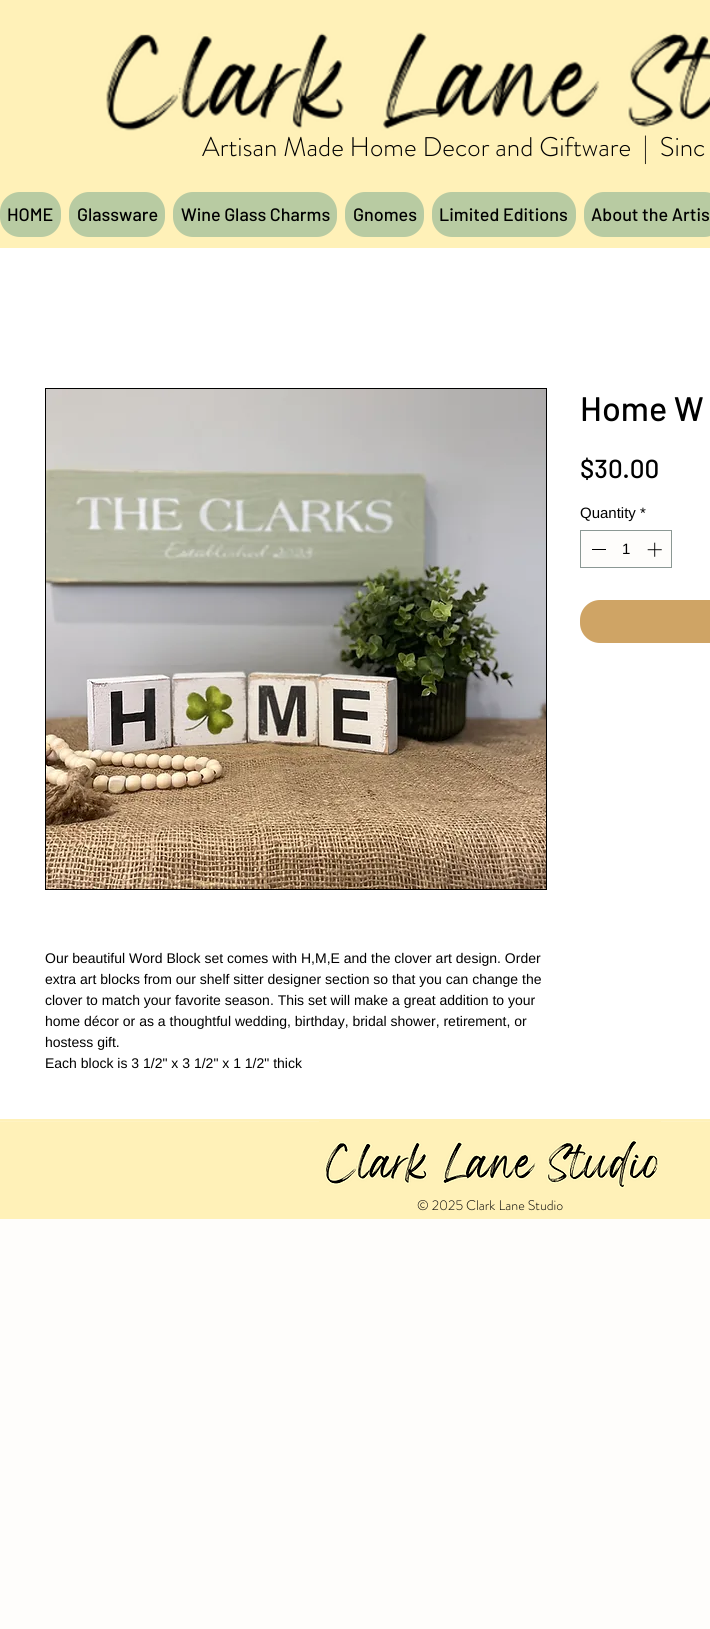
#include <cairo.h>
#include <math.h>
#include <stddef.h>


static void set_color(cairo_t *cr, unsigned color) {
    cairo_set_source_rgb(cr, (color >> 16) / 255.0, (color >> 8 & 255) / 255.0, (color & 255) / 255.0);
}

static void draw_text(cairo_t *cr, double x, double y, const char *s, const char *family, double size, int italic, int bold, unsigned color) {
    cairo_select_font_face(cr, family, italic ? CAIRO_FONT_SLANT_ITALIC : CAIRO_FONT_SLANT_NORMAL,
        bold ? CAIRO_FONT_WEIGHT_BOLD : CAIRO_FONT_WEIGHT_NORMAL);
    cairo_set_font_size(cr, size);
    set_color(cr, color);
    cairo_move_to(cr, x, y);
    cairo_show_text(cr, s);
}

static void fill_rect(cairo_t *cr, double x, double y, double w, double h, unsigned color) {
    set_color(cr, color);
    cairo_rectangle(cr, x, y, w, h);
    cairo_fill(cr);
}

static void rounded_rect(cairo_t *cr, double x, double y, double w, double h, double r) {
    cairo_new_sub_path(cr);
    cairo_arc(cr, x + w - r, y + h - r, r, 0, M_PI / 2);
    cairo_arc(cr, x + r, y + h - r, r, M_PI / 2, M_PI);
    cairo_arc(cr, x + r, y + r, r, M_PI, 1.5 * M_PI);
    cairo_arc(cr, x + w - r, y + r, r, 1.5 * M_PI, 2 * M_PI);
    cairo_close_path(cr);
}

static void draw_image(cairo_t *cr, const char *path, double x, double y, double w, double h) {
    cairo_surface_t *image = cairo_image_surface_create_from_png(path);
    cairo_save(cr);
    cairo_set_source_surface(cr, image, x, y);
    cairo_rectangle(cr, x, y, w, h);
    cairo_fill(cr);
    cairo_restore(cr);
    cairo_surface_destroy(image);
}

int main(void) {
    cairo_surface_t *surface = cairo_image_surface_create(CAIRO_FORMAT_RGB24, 710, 1629);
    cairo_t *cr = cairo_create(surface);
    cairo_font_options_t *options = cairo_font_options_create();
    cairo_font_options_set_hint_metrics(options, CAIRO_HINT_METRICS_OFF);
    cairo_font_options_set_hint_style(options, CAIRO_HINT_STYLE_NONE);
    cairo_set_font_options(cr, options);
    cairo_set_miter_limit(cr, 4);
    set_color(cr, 0xFEFDFB);
    cairo_paint(cr);
    fill_rect(cr, 0, 0, 710, 248, 0xFFF1B8);
    draw_image(cr, "assets/img1.png", 106, 31, 604, 100);
    draw_text(cr, 202, 156, "Artisan Made Home Decor and Giftware  |  Sinc", "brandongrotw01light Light", 27, 0, 0, 0x000000);
    set_color(cr, 0xB8CBA2);
    rounded_rect(cr, 0, 192, 61, 45, 20);
    cairo_fill(cr);
    draw_text(cr, 7, 221, "HOME", "Barlow Medium", 18, 0, 0, 0x000000);
    set_color(cr, 0xB8CBA2);
    rounded_rect(cr, 69, 192, 96, 45, 20);
    cairo_fill(cr);
    draw_text(cr, 77, 221, "Glassware", "Barlow Medium", 18, 0, 0, 0x000000);
    set_color(cr, 0xB8CBA2);
    rounded_rect(cr, 173, 192, 164, 45, 20);
    cairo_fill(cr);
    draw_text(cr, 181, 221, "Wine Glass Charms", "Barlow Medium", 18, 0, 0, 0x000000);
    set_color(cr, 0xB8CBA2);
    rounded_rect(cr, 345, 192, 79, 45, 20);
    cairo_fill(cr);
    draw_text(cr, 353, 221, "Gnomes", "Barlow Medium", 18, 0, 0, 0x000000);
    set_color(cr, 0xB8CBA2);
    rounded_rect(cr, 432, 192, 144, 45, 20);
    cairo_fill(cr);
    draw_text(cr, 439, 221, "Limited Editions", "Barlow Medium", 18, 0, 0, 0x000000);
    set_color(cr, 0xB8CBA2);
    rounded_rect(cr, 584, 192, 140, 45, 20);
    cairo_fill(cr);
    draw_text(cr, 591, 221, "About the Artis", "Barlow Medium", 18, 0, 0, 0x000000);
    fill_rect(cr, 0, 248, 710, 871, 0xFFFFFF);
    draw_text(cr, 580, 421, "Home W", "Barlow Medium", 34, 0, 0, 0x000000);
    draw_text(cr, 580, 478, "$30.00", "Barlow Medium", 26, 0, 0, 0x000000);
    draw_text(cr, 580, 518, "Quantity *", "Liberation Sans", 15, 0, 0, 0x000000);
    set_color(cr, 0xFEFDFB);
    cairo_rectangle(cr, 580.5, 530.5, 91, 37);
    cairo_fill_preserve(cr);
    set_color(cr, 0x8B9894);
    cairo_set_line_width(cr, 1);
    cairo_stroke(cr);
    fill_rect(cr, 592, 549, 14, 1, 0x000000);
    draw_text(cr, 622, 554, "1", "Liberation Sans", 15, 0, 0, 0x000000);
    draw_image(cr, "assets/img2.png", 647, 542, 15, 15);
    set_color(cr, 0xCFA465);
    rounded_rect(cr, 580, 600, 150, 43, 20);
    cairo_fill(cr);
    cairo_rectangle(cr, 45.5, 388.5, 501, 501);
    set_color(cr, 0x000000);
    cairo_stroke(cr);
    draw_image(cr, "assets/img3.png", 46, 389, 500, 500);
    draw_text(cr, 45, 963, "Our beautiful Word Block set comes with H,M,E and the clover art design. Order", "Liberation Sans", 14, 0, 0, 0x000000);
    draw_text(cr, 45, 984, "extra art blocks from our shelf sitter designer section so that you can change the", "Liberation Sans", 14, 0, 0, 0x000000);
    draw_text(cr, 45, 1005, "clover to match your favorite season. This set will make a great addition to your", "Liberation Sans", 14, 0, 0, 0x000000);
    draw_text(cr, 45, 1026, "home décor or as a thoughtful wedding, birthday, bridal shower, retirement, or", "Liberation Sans", 14, 0, 0, 0x000000);
    draw_text(cr, 45, 1047, "hostess gift.", "Liberation Sans", 14, 0, 0, 0x000000);
    draw_text(cr, 45, 1068, "Each block is 3 1/2\" x 3 1/2\" x 1 1/2\" thick", "Liberation Sans", 14, 0, 0, 0x000000);
    fill_rect(cr, 0, 1119, 710, 2, 0xFFF1B8);
    fill_rect(cr, 0, 1122, 710, 97, 0xFFF1B8);
    fill_rect(cr, 0, 1121, 710, 1, 0xFFF3C2);
    draw_image(cr, "assets/img4.png", 319, 1121, 342, 67);
    draw_text(cr, 417, 1210, "© 2025 Clark Lane Studio", "brandongrotw01light Light", 14, 0, 0, 0x000000);
    cairo_surface_write_to_png(surface, "output.png");
    cairo_font_options_destroy(options);
    cairo_destroy(cr);
    cairo_surface_destroy(surface);
    return 0;
}
